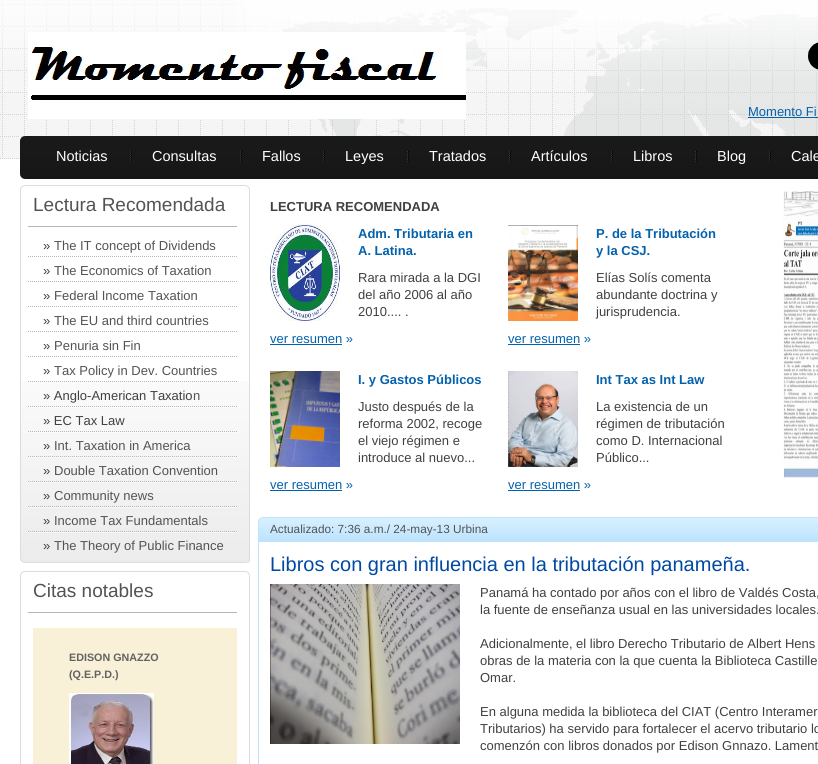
#include <cairo.h>
#include <math.h>
#include <stddef.h>


static void set_color(cairo_t *cr, unsigned color) {
    cairo_set_source_rgb(cr, (color >> 16) / 255.0, (color >> 8 & 255) / 255.0, (color & 255) / 255.0);
}

static void draw_text(cairo_t *cr, double x, double y, const char *s, const char *family, double size, int italic, int bold, unsigned color) {
    cairo_select_font_face(cr, family, italic ? CAIRO_FONT_SLANT_ITALIC : CAIRO_FONT_SLANT_NORMAL,
        bold ? CAIRO_FONT_WEIGHT_BOLD : CAIRO_FONT_WEIGHT_NORMAL);
    cairo_set_font_size(cr, size);
    set_color(cr, color);
    cairo_move_to(cr, x, y);
    cairo_show_text(cr, s);
}

static void fill_rect(cairo_t *cr, double x, double y, double w, double h, unsigned color) {
    set_color(cr, color);
    cairo_rectangle(cr, x, y, w, h);
    cairo_fill(cr);
}

static void draw_image(cairo_t *cr, const char *path, double x, double y, double w, double h) {
    cairo_surface_t *image = cairo_image_surface_create_from_png(path);
    cairo_save(cr);
    cairo_set_source_surface(cr, image, x, y);
    cairo_rectangle(cr, x, y, w, h);
    cairo_fill(cr);
    cairo_restore(cr);
    cairo_surface_destroy(image);
}

int main(void) {
    cairo_surface_t *surface = cairo_image_surface_create(CAIRO_FORMAT_RGB24, 818, 764);
    cairo_t *cr = cairo_create(surface);
    cairo_font_options_t *options = cairo_font_options_create();
    cairo_font_options_set_hint_metrics(options, CAIRO_HINT_METRICS_OFF);
    cairo_font_options_set_hint_style(options, CAIRO_HINT_STYLE_NONE);
    cairo_set_font_options(cr, options);
    cairo_set_miter_limit(cr, 4);
    set_color(cr, 0xFFFFFF);
    cairo_paint(cr);
    draw_image(cr, "assets/img1.png", 0, 0, 818, 159);
    draw_image(cr, "assets/img2.png", 236, 0, 582, 136);
    draw_image(cr, "assets/img3.png", 28, 32, 438, 87);
    draw_image(cr, "assets/img4.png", 808, 42, 10, 28);
    draw_text(cr, 748, 116, "Momento Fi", "Liberation Sans", 13, 0, 0, 0x0461AC);
    fill_rect(cr, 748, 117, 70, 1, 0x0461AC);
    draw_image(cr, "assets/img5.png", 25, 136, 793, 43);
    draw_image(cr, "assets/img6.png", 20, 136, 5, 43);
    draw_text(cr, 56, 161, "Noticias", "Liberation Sans", 14.5, 0, 0, 0xFFFFFF);
    draw_image(cr, "assets/img7.png", 130, 151, 2, 11);
    draw_text(cr, 152, 161, "Consultas", "Liberation Sans", 14.5, 0, 0, 0xFFFFFF);
    draw_image(cr, "assets/img7.png", 240, 151, 2, 11);
    draw_text(cr, 262, 161, "Fallos", "Liberation Sans", 14.5, 0, 0, 0xFFFFFF);
    draw_image(cr, "assets/img7.png", 323, 151, 2, 11);
    draw_text(cr, 345, 161, "Leyes", "Liberation Sans", 14.5, 0, 0, 0xFFFFFF);
    draw_image(cr, "assets/img7.png", 407, 151, 2, 11);
    draw_text(cr, 429, 161, "Tratados", "Liberation Sans", 14.5, 0, 0, 0xFFFFFF);
    draw_image(cr, "assets/img7.png", 509, 151, 2, 11);
    draw_text(cr, 531, 161, "Artículos", "Liberation Sans", 14.5, 0, 0, 0xFFFFFF);
    draw_image(cr, "assets/img7.png", 611, 151, 2, 11);
    draw_text(cr, 633, 161, "Libros", "Liberation Sans", 14.5, 0, 0, 0xFFFFFF);
    draw_image(cr, "assets/img7.png", 695, 151, 2, 11);
    draw_text(cr, 717, 161, "Blog", "Liberation Sans", 14.5, 0, 0, 0xFFFFFF);
    draw_image(cr, "assets/img7.png", 769, 151, 2, 11);
    draw_text(cr, 791, 161, "Cale", "Liberation Sans", 14.5, 0, 0, 0xFFFFFF);
    draw_image(cr, "assets/img8.png", 21, 381, 228, 182);
    fill_rect(cr, 20, 185, 230, 1, 0xDCDCDC);
    fill_rect(cr, 249, 186, 1, 376, 0xDCDCDC);
    fill_rect(cr, 20, 186, 1, 376, 0xDCDCDC);
    draw_image(cr, "assets/img9.png", 20, 185, 4, 4);
    draw_image(cr, "assets/img10.png", 246, 185, 4, 4);
    draw_image(cr, "assets/img11.png", 245, 560, 5, 3);
    draw_image(cr, "assets/img12.png", 20, 559, 4, 4);
    fill_rect(cr, 28, 226, 209, 1, 0xB7B7B7);
    draw_text(cr, 33, 211, "Lectura Recomendada", "Liberation Sans", 19, 0, 0, 0x535353);
    draw_image(cr, "assets/img13.png", 28, 256, 209, 1);
    draw_text(cr, 43, 250, "»", "Liberation Sans", 13, 0, 0, 0x404040);
    draw_text(cr, 54, 250, "The IT concept of Dividends", "Liberation Sans", 13, 0, 0, 0x535353);
    draw_image(cr, "assets/img13.png", 28, 281, 209, 1);
    draw_text(cr, 43, 275, "»", "Liberation Sans", 13, 0, 0, 0x404040);
    draw_text(cr, 54, 275, "The Economics of Taxation", "Liberation Sans", 13, 0, 0, 0x535353);
    draw_image(cr, "assets/img13.png", 28, 306, 209, 1);
    draw_text(cr, 43, 300, "»", "Liberation Sans", 13, 0, 0, 0x404040);
    draw_text(cr, 54, 300, "Federal Income Taxation", "Liberation Sans", 13, 0, 0, 0x535353);
    draw_image(cr, "assets/img13.png", 28, 331, 209, 1);
    draw_text(cr, 43, 325, "»", "Liberation Sans", 13, 0, 0, 0x404040);
    draw_text(cr, 54, 325, "The EU and third countries", "Liberation Sans", 13, 0, 0, 0x535353);
    draw_image(cr, "assets/img13.png", 28, 356, 209, 1);
    draw_text(cr, 43, 350, "»", "Liberation Sans", 13, 0, 0, 0x404040);
    draw_text(cr, 54, 350, "Penuria sin Fin", "Liberation Sans", 13, 0, 0, 0x535353);
    draw_image(cr, "assets/img14.png", 28, 381, 209, 2);
    draw_text(cr, 43, 375, "»", "Liberation Sans", 13, 0, 0, 0x404040);
    draw_text(cr, 54, 375, "Tax Policy in Dev. Countries", "Liberation Sans", 13, 0, 0, 0x535353);
    draw_image(cr, "assets/img15.png", 28, 406, 209, 2);
    draw_text(cr, 43, 400, "» Anglo-American Taxatio", "Liberation Sans", 13, 0, 0, 0x404040);
    draw_text(cr, 193, 400, "n", "Liberation Sans", 13, 0, 0, 0x535353);
    draw_image(cr, "assets/img16.png", 28, 431, 209, 2);
    draw_text(cr, 43, 425, "» EC Tax Law", "Liberation Sans", 13, 0, 0, 0x404040);
    draw_image(cr, "assets/img17.png", 28, 456, 209, 2);
    draw_text(cr, 43, 450, "»", "Liberation Sans", 13, 0, 0, 0x404040);
    draw_text(cr, 54, 450, "Int. Taxation in America", "Liberation Sans", 13, 0, 0, 0x535353);
    draw_image(cr, "assets/img18.png", 28, 481, 209, 2);
    draw_text(cr, 43, 475, "»", "Liberation Sans", 13, 0, 0, 0x404040);
    draw_text(cr, 54, 475, "Double Taxation Convention", "Liberation Sans", 13, 0, 0, 0x535353);
    draw_image(cr, "assets/img19.png", 28, 506, 209, 2);
    draw_text(cr, 43, 500, "»", "Liberation Sans", 13, 0, 0, 0x404040);
    draw_text(cr, 54, 500, "Community news", "Liberation Sans", 13, 0, 0, 0x535353);
    draw_image(cr, "assets/img20.png", 28, 531, 209, 2);
    draw_text(cr, 43, 525, "»", "Liberation Sans", 13, 0, 0, 0x404040);
    draw_text(cr, 54, 525, "Income Tax Fundamentals", "Liberation Sans", 13, 0, 0, 0x535353);
    draw_text(cr, 43, 550, "»", "Liberation Sans", 13, 0, 0, 0x404040);
    draw_text(cr, 54, 550, "The Theory of Public Finance", "Liberation Sans", 13, 0, 0, 0x535353);
    fill_rect(cr, 20, 571, 230, 1, 0xDCDCDC);
    fill_rect(cr, 249, 572, 1, 192, 0xDCDCDC);
    fill_rect(cr, 20, 572, 1, 192, 0xDCDCDC);
    draw_image(cr, "assets/img9.png", 20, 571, 4, 4);
    draw_image(cr, "assets/img10.png", 246, 571, 4, 4);
    fill_rect(cr, 28, 612, 209, 1, 0xB7B7B7);
    draw_text(cr, 33, 597, "Citas notables", "Liberation Sans", 19, 0, 0, 0x535353);
    fill_rect(cr, 33, 628, 204, 136, 0xF8F1D8);
    draw_text(cr, 69, 661, "EDISON GNAZZO", "Liberation Sans", 10.75, 0, 1, 0x626262);
    draw_text(cr, 69, 678, "(Q.E.P.D.)", "Liberation Sans", 10.75, 0, 1, 0x626262);
    draw_image(cr, "assets/img21.png", 69, 693, 85, 71);
    draw_text(cr, 270, 211, "LECTURA RECOMENDADA", "Liberation Sans", 13, 0, 1, 0x404040);
    draw_image(cr, "assets/img22.png", 270, 225, 70, 96);
    draw_text(cr, 358, 238, "Adm. Tributaria en", "Liberation Sans", 13, 0, 1, 0x0461AC);
    draw_text(cr, 358, 255, "A. Latina.", "Liberation Sans", 13, 0, 1, 0x0461AC);
    draw_text(cr, 358, 282, "Rara mirada a la DGI", "Liberation Sans", 13, 0, 0, 0x404040);
    draw_text(cr, 358, 299, "del año 2006 al año", "Liberation Sans", 13, 0, 0, 0x404040);
    draw_text(cr, 358, 316, "2010.... .", "Liberation Sans", 13, 0, 0, 0x404040);
    draw_text(cr, 270, 343, "ver resumen »", "Liberation Sans", 13, 0, 0, 0x0461AC);
    fill_rect(cr, 270, 344, 72, 1, 0x0461AC);
    draw_image(cr, "assets/img23.png", 508, 225, 70, 96);
    draw_text(cr, 596, 238, "P. de la Tributación", "Liberation Sans", 13, 0, 1, 0x0461AC);
    draw_text(cr, 596, 255, "y la CSJ.", "Liberation Sans", 13, 0, 1, 0x0461AC);
    draw_text(cr, 596, 282, "Elías Solís comenta", "Liberation Sans", 13, 0, 0, 0x404040);
    draw_text(cr, 596, 299, "abundante doctrina y", "Liberation Sans", 13, 0, 0, 0x404040);
    draw_text(cr, 596, 316, "jurisprudencia.", "Liberation Sans", 13, 0, 0, 0x404040);
    draw_text(cr, 508, 343, "ver resumen »", "Liberation Sans", 13, 0, 0, 0x0461AC);
    fill_rect(cr, 508, 344, 72, 1, 0x0461AC);
    draw_image(cr, "assets/img24.png", 270, 371, 70, 96);
    draw_text(cr, 358, 384, "I. y Gastos Públicos", "Liberation Sans", 13, 0, 1, 0x0461AC);
    draw_text(cr, 358, 411, "Justo después de la", "Liberation Sans", 13, 0, 0, 0x404040);
    draw_text(cr, 358, 428, "reforma 2002, recoge", "Liberation Sans", 13, 0, 0, 0x404040);
    draw_text(cr, 358, 445, "el viejo régimen e", "Liberation Sans", 13, 0, 0, 0x404040);
    draw_text(cr, 358, 462, "introduce al nuevo...", "Liberation Sans", 13, 0, 0, 0x404040);
    draw_text(cr, 270, 489, "ver resumen »", "Liberation Sans", 13, 0, 0, 0x0461AC);
    fill_rect(cr, 270, 490, 72, 1, 0x0461AC);
    draw_image(cr, "assets/img25.png", 508, 371, 70, 96);
    draw_text(cr, 596, 384, "Int Tax as Int Law", "Liberation Sans", 13, 0, 1, 0x0461AC);
    draw_text(cr, 596, 411, "La existencia de un", "Liberation Sans", 13, 0, 0, 0x404040);
    draw_text(cr, 596, 428, "régimen de tributación", "Liberation Sans", 13, 0, 0, 0x404040);
    draw_text(cr, 596, 445, "como D. Internacional", "Liberation Sans", 13, 0, 0, 0x404040);
    draw_text(cr, 596, 462, "Público...", "Liberation Sans", 13, 0, 0, 0x404040);
    draw_text(cr, 508, 489, "ver resumen »", "Liberation Sans", 13, 0, 0, 0x0461AC);
    fill_rect(cr, 508, 490, 72, 1, 0x0461AC);
    draw_image(cr, "assets/img26.png", 783, 191, 35, 287);
    draw_image(cr, "assets/img27.png", 259, 517, 559, 25);
    fill_rect(cr, 258, 518, 1, 246, 0xBEE3FE);
    draw_image(cr, "assets/img28.png", 258, 517, 5, 4);
    draw_text(cr, 270, 533, "Actualizado: 7:36 a.m./ 24-may-13 Urbina", "Liberation Sans", 11.8, 0, 0, 0x535353);
    draw_text(cr, 270, 571, "Libros con gran influencia en la tributación panameña.", "Liberation Sans", 20, 0, 0, 0x0049A3);
    draw_image(cr, "assets/img29.png", 270, 584, 190, 160);
    draw_text(cr, 480, 597, "Panamá ha contado por años con el libro de Valdés Costa,", "Liberation Sans", 13, 0, 0, 0x404040);
    draw_text(cr, 480, 614, "la fuente de enseñanza usual en las universidades locales.", "Liberation Sans", 13, 0, 0, 0x404040);
    draw_text(cr, 480, 648, "Adicionalmente, el libro Derecho Tributario de Albert Hens", "Liberation Sans", 13, 0, 0, 0x404040);
    draw_text(cr, 480, 665, "obras de la materia con la que cuenta la Biblioteca Castille", "Liberation Sans", 13, 0, 0, 0x404040);
    draw_text(cr, 480, 682, "Omar.", "Liberation Sans", 13, 0, 0, 0x404040);
    draw_text(cr, 480, 716, "En alguna medida la biblioteca del CIAT (Centro Interamer", "Liberation Sans", 13, 0, 0, 0x404040);
    draw_text(cr, 480, 733, "Tributarios) ha servido para fortalecer el acervo tributario lo", "Liberation Sans", 13, 0, 0, 0x404040);
    draw_text(cr, 480, 750, "comenzón con libros donados por Edison Gnnazo. Lament", "Liberation Sans", 13, 0, 0, 0x404040);
    cairo_surface_write_to_png(surface, "output.png");
    cairo_font_options_destroy(options);
    cairo_destroy(cr);
    cairo_surface_destroy(surface);
    return 0;
}
